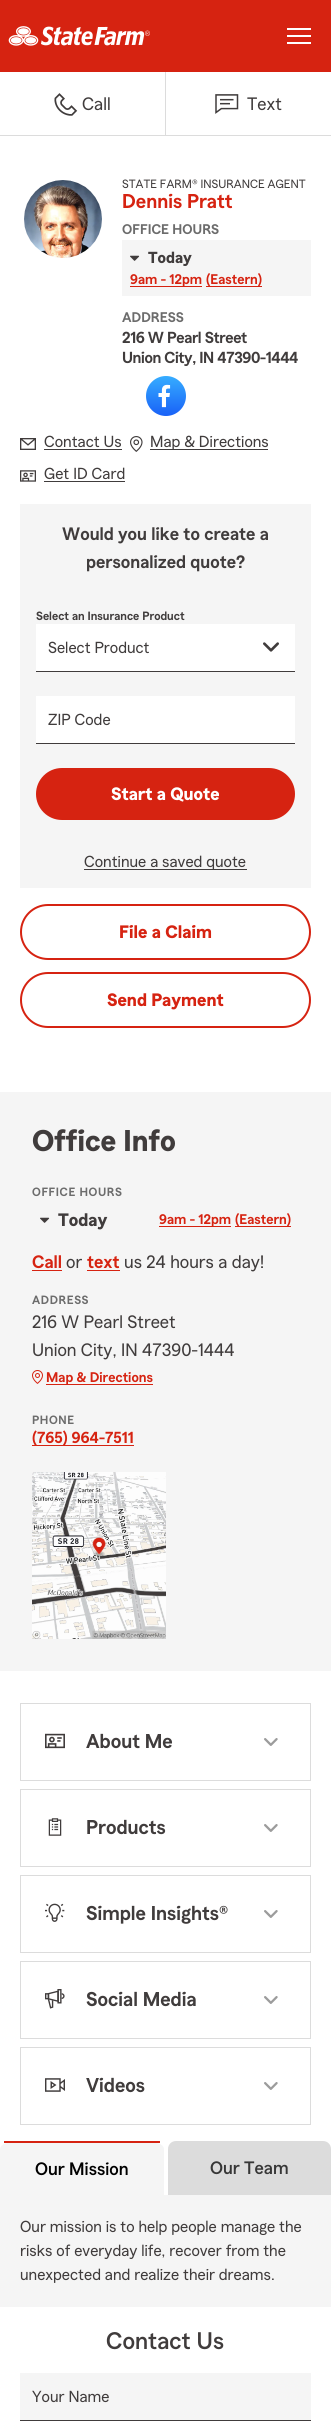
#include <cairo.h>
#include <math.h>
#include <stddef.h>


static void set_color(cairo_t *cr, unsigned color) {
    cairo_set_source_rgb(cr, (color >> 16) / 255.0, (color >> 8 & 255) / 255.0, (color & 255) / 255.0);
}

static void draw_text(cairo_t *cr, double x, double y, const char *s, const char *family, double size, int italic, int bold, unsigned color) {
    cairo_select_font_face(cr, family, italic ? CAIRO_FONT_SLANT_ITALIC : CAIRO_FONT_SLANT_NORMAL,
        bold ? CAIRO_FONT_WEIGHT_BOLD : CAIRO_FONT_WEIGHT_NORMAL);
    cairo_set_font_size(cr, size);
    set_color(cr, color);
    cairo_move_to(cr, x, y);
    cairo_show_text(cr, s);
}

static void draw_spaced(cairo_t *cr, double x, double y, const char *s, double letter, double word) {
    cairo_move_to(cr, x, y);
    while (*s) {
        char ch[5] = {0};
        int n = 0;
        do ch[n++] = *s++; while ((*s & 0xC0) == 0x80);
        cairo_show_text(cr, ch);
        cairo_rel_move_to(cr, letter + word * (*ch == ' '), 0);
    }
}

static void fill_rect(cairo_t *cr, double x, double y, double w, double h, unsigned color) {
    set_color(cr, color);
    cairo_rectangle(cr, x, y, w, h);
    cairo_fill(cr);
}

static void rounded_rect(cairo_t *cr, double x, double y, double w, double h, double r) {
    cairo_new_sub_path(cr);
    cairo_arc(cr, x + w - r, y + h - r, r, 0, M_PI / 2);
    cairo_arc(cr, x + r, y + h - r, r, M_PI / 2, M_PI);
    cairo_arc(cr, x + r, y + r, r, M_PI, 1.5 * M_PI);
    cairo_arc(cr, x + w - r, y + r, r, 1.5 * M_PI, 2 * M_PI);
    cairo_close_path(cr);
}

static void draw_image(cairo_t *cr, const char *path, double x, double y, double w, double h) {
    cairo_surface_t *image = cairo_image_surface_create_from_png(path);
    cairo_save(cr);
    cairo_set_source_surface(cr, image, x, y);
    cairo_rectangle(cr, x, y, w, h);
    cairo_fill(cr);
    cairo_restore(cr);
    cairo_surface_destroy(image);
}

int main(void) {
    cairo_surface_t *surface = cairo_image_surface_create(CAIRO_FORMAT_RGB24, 331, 2421);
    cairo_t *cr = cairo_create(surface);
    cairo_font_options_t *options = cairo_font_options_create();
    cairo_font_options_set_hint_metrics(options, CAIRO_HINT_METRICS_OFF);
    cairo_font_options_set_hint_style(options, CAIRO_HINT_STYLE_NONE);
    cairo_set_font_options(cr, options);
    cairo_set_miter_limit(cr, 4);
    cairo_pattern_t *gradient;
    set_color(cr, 0xFFFFFF);
    cairo_paint(cr);
    fill_rect(cr, 0, 0, 331, 72, 0xD62311);
    draw_image(cr, "assets/img1.png", 8, 26, 142, 20);
    fill_rect(cr, 287, 28, 24, 2, 0xFFFFFF);
    fill_rect(cr, 287, 35, 24, 2, 0xFFFFFF);
    fill_rect(cr, 287, 42, 24, 2, 0xFFFFFF);
    fill_rect(cr, 0, 135, 331, 1, 0xDCDCDC);
    draw_image(cr, "assets/img2.png", 54, 93, 24, 23);
    draw_text(cr, 82, 110, "Call", "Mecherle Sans", 18, 0, 0, 0x403C3C);
    fill_rect(cr, 165, 72, 1, 63, 0xDCDCDC);
    draw_image(cr, "assets/img3.png", 215, 94, 24, 20);
    draw_text(cr, 247, 110, "Text", "Mecherle Sans", 18, 0, 0, 0x403C3C);
    set_color(cr, 0xF5F5F5);
    cairo_new_path(cr);
    cairo_arc(cr, 63, 219, 41, 0, 2 * M_PI);
    cairo_fill_preserve(cr);
    set_color(cr, 0xFFFFFF);
    cairo_set_line_width(cr, 4);
    cairo_stroke(cr);
    draw_image(cr, "assets/img4.png", 24, 180, 78, 78);
    draw_text(cr, 122, 188, "STATE FARM® INSURANCE AGENT", "Mecherle Sans", 12, 0, 0, 0x403C3C);
    draw_text(cr, 122, 208, "Dennis Pratt", "Mecherle Sans SemiBold", 20, 0, 0, 0xD62311);
    draw_text(cr, 122, 234, "OFFICE HOURS", "Mecherle Sans SemiBold", 14, 0, 0, 0x6C6C6C);
    fill_rect(cr, 122, 240, 189, 56, 0xF5F5F5);
    draw_image(cr, "assets/img5.png", 130, 255, 10, 6);
    draw_text(cr, 148, 263, "Today", "Mecherle Sans", 16, 0, 1, 0x403C3C);
    fill_rect(cr, 130, 286, 72, 1, 0xD62311);
    draw_text(cr, 130, 284, "9am - 12pm", "Mecherle Sans SemiBold", 14, 0, 0, 0xD62311);
    fill_rect(cr, 206, 286, 56, 1, 0xD62311);
    draw_text(cr, 206, 284, "(Eastern)", "Mecherle Sans SemiBold", 14, 0, 0, 0xD62311);
    draw_text(cr, 122, 322, "ADDRESS", "Mecherle Sans SemiBold", 14, 0, 0, 0x6C6C6C);
    cairo_set_font_size(cr, 16);
    set_color(cr, 0x403C3C);
    draw_spaced(cr, 122, 343, "216 W Pearl Street", -0.4, 0);
    draw_spaced(cr, 122, 363, "Union City, IN 47390-1444", -0.4, 0);
    gradient = cairo_pattern_create_linear(166, 416, 166, 376);
    cairo_pattern_add_color_stop_rgba(gradient, 0, 0.098, 0.38, 0.969, 1);
    cairo_pattern_add_color_stop_rgba(gradient, 1, 0.212, 0.678, 1, 1);
    cairo_set_source(cr, gradient);
    cairo_pattern_destroy(gradient);
    cairo_new_path(cr);
    cairo_arc(cr, 166, 396, 20, 0, 2 * M_PI);
    cairo_fill(cr);
    draw_image(cr, "assets/img6.png", 158, 384, 13, 24);
    draw_image(cr, "assets/img7.png", 20, 438, 16, 12);
    draw_text(cr, 44, 447, "Contact Us", "Mecherle Sans", 16, 0, 0, 0x403C3C);
    fill_rect(cr, 44, 449, 78, 1, 0x403C3C);
    draw_image(cr, "assets/img8.png", 130, 436, 13, 16);
    fill_rect(cr, 150, 449, 118, 1, 0x403C3C);
    draw_text(cr, 150, 447, "Map & Directions", "Mecherle Sans", 16, 0, 0, 0x403C3C);
    draw_image(cr, "assets/img9.png", 20, 470, 16, 12);
    draw_text(cr, 44, 479, "Get ID Card", "Mecherle Sans", 16, 0, 0, 0x403C3C);
    fill_rect(cr, 44, 481, 81, 1, 0x403C3C);
    fill_rect(cr, 20, 504, 291, 384, 0xF5F5F5);
    draw_text(cr, 62, 540, "Would you like to create a", "Mecherle Sans SemiBold", 18, 0, 0, 0x403C3C);
    draw_text(cr, 86, 568, "personalized quote?", "Mecherle Sans SemiBold", 18, 0, 0, 0x403C3C);
    fill_rect(cr, 36, 671, 259, 1, 0x403C3C);
    draw_text(cr, 36, 620, "Select an Insurance Product", "Mecherle Sans SemiBold", 12, 0, 0, 0x403C3C);
    fill_rect(cr, 36, 624, 259, 47, 0xFFFFFF);
    draw_text(cr, 48, 653, "Select Product", "Mecherle Sans", 16, 0, 0, 0x403C3C);
    draw_image(cr, "assets/img10.png", 263, 642, 16, 10);
    fill_rect(cr, 36, 696, 259, 47, 0xFFFFFF);
    fill_rect(cr, 36, 743, 259, 1, 0x403C3C);
    draw_text(cr, 48, 725, "ZIP Code", "Mecherle Sans", 16, 0, 0, 0x403C3C);
    set_color(cr, 0xD62311);
    rounded_rect(cr, 36, 768, 259, 52, 26);
    cairo_fill(cr);
    draw_text(cr, 111, 800, "Start a Quote", "Mecherle Sans", 18, 0, 1, 0xFFFFFF);
    fill_rect(cr, 84, 869, 163, 1, 0x403C3C);
    draw_text(cr, 84, 867, "Continue a saved quote", "Mecherle Sans", 16, 0, 0, 0x403C3C);
    rounded_rect(cr, 21, 905, 289, 54, 27);
    set_color(cr, 0xD62311);
    cairo_set_line_width(cr, 2);
    cairo_stroke(cr);
    draw_text(cr, 119, 938, "File a Claim", "Mecherle Sans", 18, 0, 1, 0xD62311);
    rounded_rect(cr, 21, 973, 289, 54, 27);
    cairo_stroke(cr);
    draw_text(cr, 107, 1006, "Send Payment", "Mecherle Sans", 18, 0, 1, 0xD62311);
    fill_rect(cr, 0, 1092, 331, 579, 0xF5F5F5);
    draw_text(cr, 32, 1151, "Office Info", "Mecherle Sans", 30, 0, 1, 0x403C3C);
    cairo_select_font_face(cr, "Mecherle Sans SemiBold", CAIRO_FONT_SLANT_NORMAL, CAIRO_FONT_WEIGHT_NORMAL);
    cairo_set_font_size(cr, 12);
    set_color(cr, 0x6C6C6C);
    draw_spaced(cr, 32, 1196, "OFFICE HOURS", 0.6, 0);
    draw_image(cr, "assets/img5.png", 40, 1217, 10, 6);
    draw_text(cr, 58, 1226, "Today", "Mecherle Sans", 18, 0, 1, 0x403C3C);
    fill_rect(cr, 159, 1226, 72, 1, 0xD62311);
    draw_text(cr, 159, 1224, "9am - 12pm", "Mecherle Sans SemiBold", 14, 0, 0, 0xD62311);
    fill_rect(cr, 235, 1226, 56, 1, 0xD62311);
    draw_text(cr, 235, 1224, "(Eastern)", "Mecherle Sans SemiBold", 14, 0, 0, 0xD62311);
    draw_text(cr, 32, 1268, "Call", "Mecherle Sans SemiBold", 18, 0, 0, 0xD62311);
    fill_rect(cr, 32, 1270, 30, 1, 0xD62311);
    draw_text(cr, 66, 1268, "or", "Mecherle Sans", 18, 0, 0, 0x403C3C);
    draw_text(cr, 87, 1268, "text", "Mecherle Sans SemiBold", 18, 0, 0, 0xD62311);
    fill_rect(cr, 87, 1270, 33, 1, 0xD62311);
    draw_text(cr, 124, 1268, "us 24 hours a day!", "Mecherle Sans", 18, 0, 0, 0x403C3C);
    cairo_select_font_face(cr, "Mecherle Sans SemiBold", CAIRO_FONT_SLANT_NORMAL, CAIRO_FONT_WEIGHT_NORMAL);
    cairo_set_font_size(cr, 12);
    set_color(cr, 0x6C6C6C);
    draw_spaced(cr, 32, 1304, "ADDRESS", 0.6, 0);
    draw_text(cr, 32, 1328, "216 W Pearl Street", "Mecherle Sans", 18, 0, 0, 0x403C3C);
    draw_text(cr, 32, 1356, "Union City, IN 47390-1444", "Mecherle Sans", 18, 0, 0, 0x403C3C);
    draw_image(cr, "assets/img11.png", 32, 1370, 11, 14);
    fill_rect(cr, 46, 1384, 107, 1, 0xD62311);
    draw_text(cr, 46, 1382, "Map & Directions", "Mecherle Sans SemiBold", 14, 0, 0, 0xD62311);
    cairo_set_font_size(cr, 12);
    set_color(cr, 0x6C6C6C);
    draw_spaced(cr, 32, 1424, "PHONE", 0.6, 0);
    fill_rect(cr, 32, 1445, 102, 1, 0xD62311);
    draw_text(cr, 32, 1443, "(765) 964-7511", "Mecherle Sans SemiBold", 16, 0, 0, 0xD62311);
    draw_image(cr, "assets/img12.png", 32, 1472, 134, 167);
    cairo_rectangle(cr, 20.5, 1703.5, 290, 77);
    set_color(cr, 0xDCDCDC);
    cairo_set_line_width(cr, 1);
    cairo_stroke(cr);
    draw_image(cr, "assets/img13.png", 45, 1733, 20, 16);
    draw_text(cr, 86, 1748, "About Me", "Mecherle Sans SemiBold", 20, 0, 0, 0x403C3C);
    draw_image(cr, "assets/img14.png", 264, 1738, 14, 8);
    cairo_rectangle(cr, 20.5, 1789.5, 290, 77);
    set_color(cr, 0xDCDCDC);
    cairo_stroke(cr);
    draw_image(cr, "assets/img15.png", 48, 1818, 14, 18);
    draw_text(cr, 86, 1834, "Products", "Mecherle Sans SemiBold", 20, 0, 0, 0x403C3C);
    draw_image(cr, "assets/img14.png", 264, 1824, 14, 8);
    cairo_rectangle(cr, 20.5, 1875.5, 290, 77);
    set_color(cr, 0xDCDCDC);
    cairo_stroke(cr);
    draw_image(cr, "assets/img16.png", 45, 1903, 20, 19);
    draw_text(cr, 86, 1920, "Simple Insights®", "Mecherle Sans SemiBold", 20, 0, 0, 0x403C3C);
    draw_image(cr, "assets/img14.png", 264, 1910, 14, 8);
    cairo_rectangle(cr, 20.5, 1961.5, 290, 77);
    set_color(cr, 0xDCDCDC);
    cairo_stroke(cr);
    draw_image(cr, "assets/img17.png", 45, 1989, 20, 20);
    draw_text(cr, 86, 2006, "Social Media", "Mecherle Sans SemiBold", 20, 0, 0, 0x403C3C);
    draw_image(cr, "assets/img14.png", 264, 1996, 14, 8);
    cairo_rectangle(cr, 20.5, 2047.5, 290, 77);
    set_color(cr, 0xDCDCDC);
    cairo_stroke(cr);
    draw_image(cr, "assets/img18.png", 45, 2078, 20, 14);
    draw_text(cr, 86, 2092, "Videos", "Mecherle Sans SemiBold", 20, 0, 0, 0x403C3C);
    draw_image(cr, "assets/img14.png", 264, 2082, 14, 8);
    set_color(cr, 0xF5F5F5);
    cairo_new_path(cr);
    cairo_move_to(cr, 8, 2143);
    cairo_line_to(cr, 156, 2143);
    cairo_curve_to(cr, 160, 2143, 164, 2146, 164, 2149);
    cairo_line_to(cr, 164, 2203);
    cairo_line_to(cr, 0, 2203);
    cairo_line_to(cr, 0, 2149);
    cairo_curve_to(cr, 0, 2146, 4, 2143, 8, 2143);
    cairo_close_path(cr);
    cairo_fill(cr);
    fill_rect(cr, 4, 2141, 156, 2, 0xD62311);
    draw_text(cr, 35, 2175, "Our Mission", "Mecherle Sans Medium", 18, 0, 0, 0x000000);
    set_color(cr, 0xDCDCDC);
    cairo_new_path(cr);
    cairo_move_to(cr, 176, 2141);
    cairo_line_to(cr, 323, 2141);
    cairo_curve_to(cr, 327.5, 2141, 331, 2144.5, 331, 2149);
    cairo_line_to(cr, 331, 2203);
    cairo_line_to(cr, 168, 2203);
    cairo_line_to(cr, 168, 2149);
    cairo_curve_to(cr, 168, 2144.5, 171.5, 2141, 176, 2141);
    cairo_close_path(cr);
    cairo_fill(cr);
    draw_text(cr, 210, 2174, "Our Team", "Mecherle Sans Medium", 18, 0, 0, 0x373737);
    fill_rect(cr, 0, 2195, 331, 112, 0xF5F5F5);
    draw_text(cr, 20, 2232, "Our mission is to help people manage the", "Mecherle Sans", 16, 0, 0, 0x403C3C);
    draw_text(cr, 20, 2256, "risks of everyday life, recover from the", "Mecherle Sans", 16, 0, 0, 0x403C3C);
    draw_text(cr, 20, 2280, "unexpected and realize their dreams.", "Mecherle Sans", 16, 0, 0, 0x403C3C);
    draw_text(cr, 106, 2349, "Contact Us", "Mecherle Sans Medium", 24, 0, 0, 0x403C3C);
    fill_rect(cr, 20, 2373, 291, 47, 0xF5F5F5);
    fill_rect(cr, 20, 2420, 291, 1, 0x403C3C);
    draw_text(cr, 32, 2402, "Your Name", "Mecherle Sans", 16, 0, 0, 0x403C3C);
    cairo_surface_write_to_png(surface, "output.png");
    cairo_font_options_destroy(options);
    cairo_destroy(cr);
    cairo_surface_destroy(surface);
    return 0;
}
